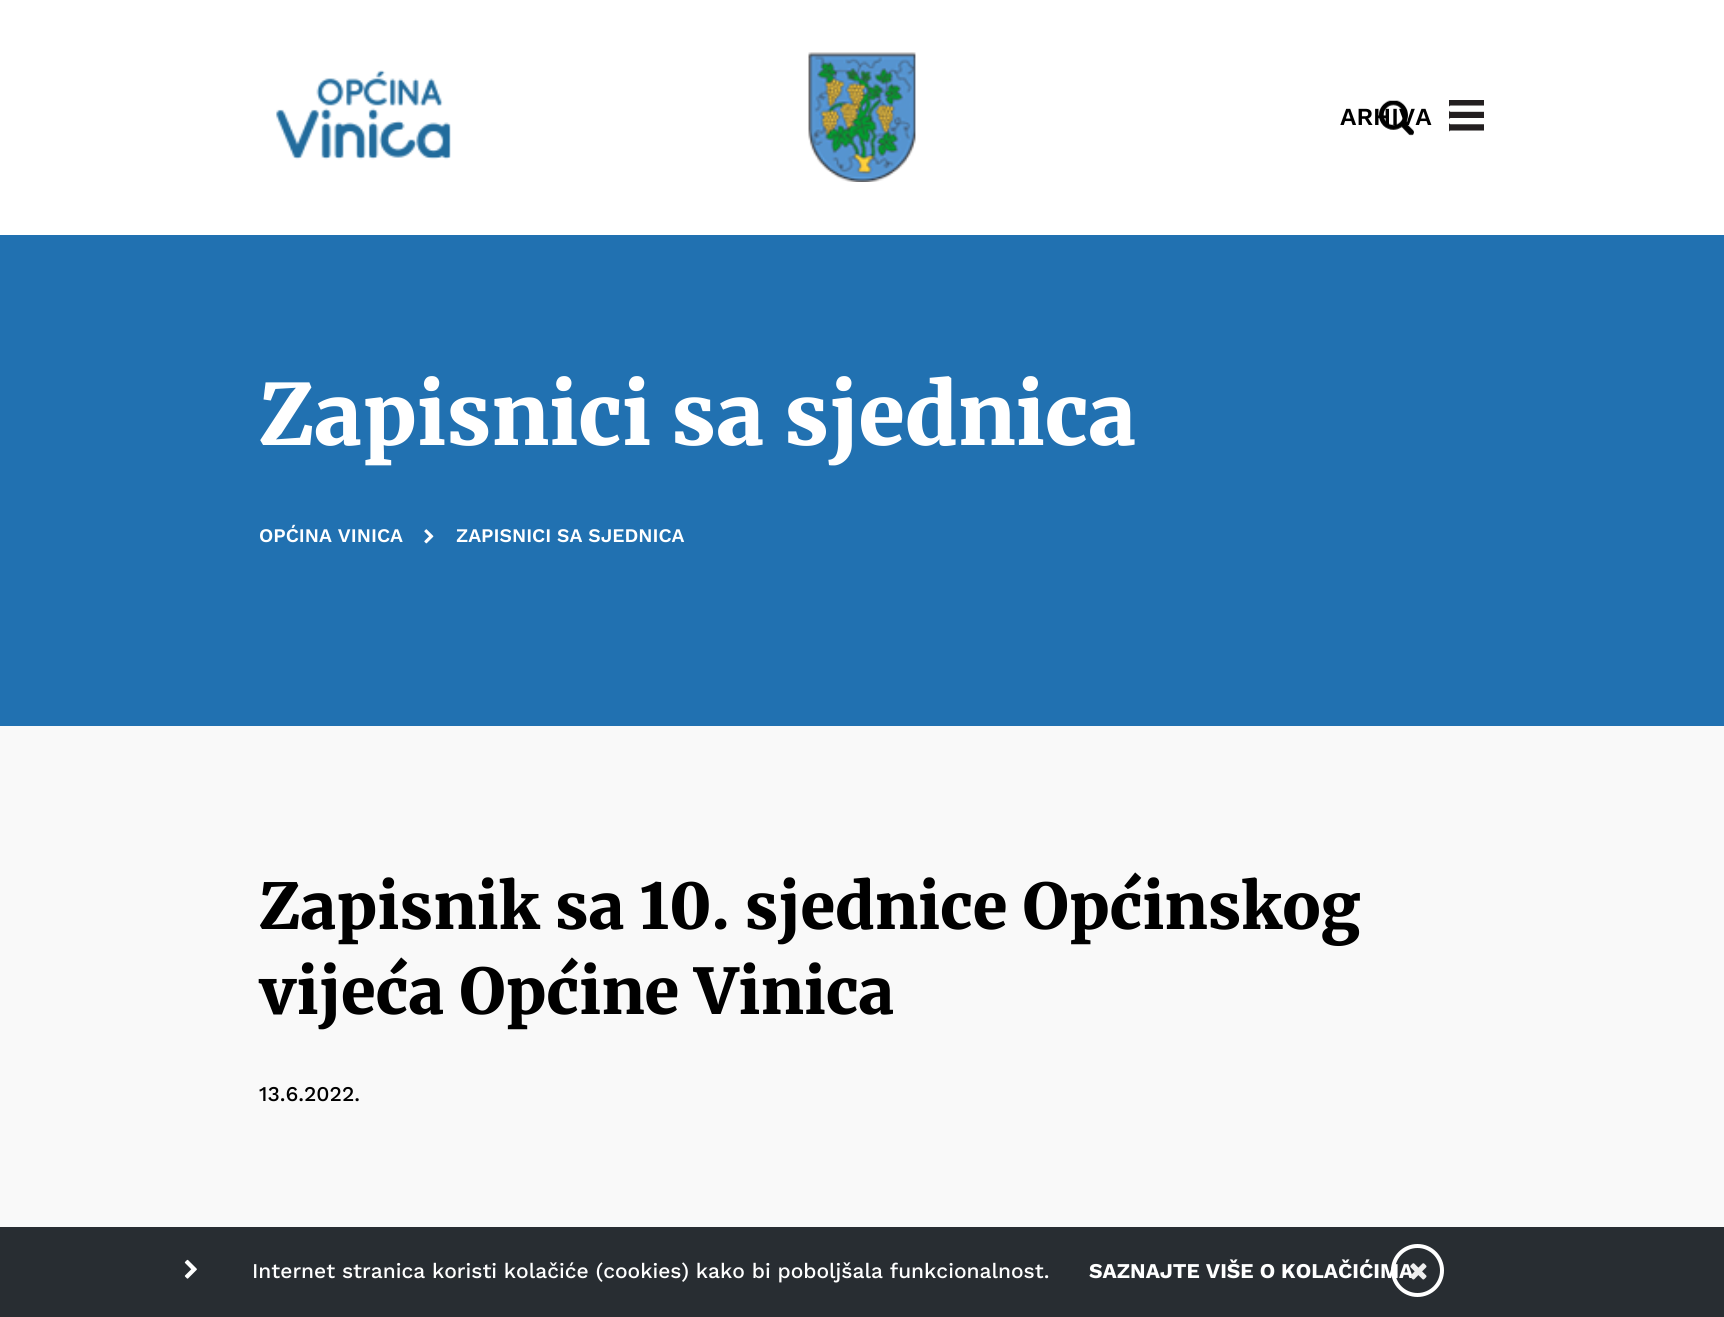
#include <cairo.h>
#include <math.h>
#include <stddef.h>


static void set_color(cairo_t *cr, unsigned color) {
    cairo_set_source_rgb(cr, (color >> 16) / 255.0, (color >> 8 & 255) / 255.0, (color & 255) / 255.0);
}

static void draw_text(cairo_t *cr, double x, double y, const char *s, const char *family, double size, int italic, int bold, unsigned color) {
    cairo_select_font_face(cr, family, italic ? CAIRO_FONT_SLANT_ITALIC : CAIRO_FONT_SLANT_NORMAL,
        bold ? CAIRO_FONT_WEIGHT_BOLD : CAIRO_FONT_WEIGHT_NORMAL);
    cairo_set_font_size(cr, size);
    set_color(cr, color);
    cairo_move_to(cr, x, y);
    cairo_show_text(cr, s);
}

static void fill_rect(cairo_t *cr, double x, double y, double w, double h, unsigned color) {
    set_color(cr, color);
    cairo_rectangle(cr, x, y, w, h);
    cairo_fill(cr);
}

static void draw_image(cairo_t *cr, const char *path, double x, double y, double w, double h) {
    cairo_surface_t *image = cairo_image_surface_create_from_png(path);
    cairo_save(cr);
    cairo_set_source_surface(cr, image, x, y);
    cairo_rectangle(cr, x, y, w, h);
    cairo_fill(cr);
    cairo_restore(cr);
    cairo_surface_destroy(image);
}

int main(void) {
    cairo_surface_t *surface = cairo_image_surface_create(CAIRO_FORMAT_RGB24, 1724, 1317);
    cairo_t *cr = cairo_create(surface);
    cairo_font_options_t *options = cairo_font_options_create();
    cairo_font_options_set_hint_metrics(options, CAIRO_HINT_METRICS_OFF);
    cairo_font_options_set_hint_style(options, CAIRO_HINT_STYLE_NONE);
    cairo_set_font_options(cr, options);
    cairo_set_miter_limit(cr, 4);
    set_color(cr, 0xF9F9F9);
    cairo_paint(cr);
    fill_rect(cr, 0, 0, 1724, 235, 0xFFFFFF);
    draw_image(cr, "assets/img1.png", 276, 70, 175, 90);
    draw_image(cr, "assets/img2.png", 808, 52, 108, 130);
    draw_text(cr, 1340, 125, "ARHIVA", "Work Sans SemiBold", 24.5, 0, 0, 0x000000);
    draw_image(cr, "assets/img3.png", 1379, 100, 35, 36);
    fill_rect(cr, 1449, 100, 35, 32, 0x231F20);
    draw_image(cr, "assets/img4.png", 1449, 105, 35, 30);
    fill_rect(cr, 0, 235, 1724, 491, 0x2171B1);
    draw_text(cr, 259, 445, "Zapisnici sa sjednica", "Merriweather Black", 84, 0, 0, 0xFFFFFF);
    draw_text(cr, 259, 542, "OPĆINA VINICA", "Work Sans SemiBold", 19.25, 0, 0, 0xFFFFFF);
    draw_image(cr, "assets/img5.png", 424, 529, 10, 15);
    draw_text(cr, 456, 542, "ZAPISNICI SA SJEDNICA", "Work Sans SemiBold", 19.25, 0, 0, 0xFFFFFF);
    draw_text(cr, 259, 929, "Zapisnik sa 10. sjednice Općinskog", "Merriweather Black", 63, 0, 0, 0x000000);
    draw_text(cr, 259, 1014, "vijeća Općine Vinica", "Merriweather Black", 63, 0, 0, 0x000000);
    draw_text(cr, 259, 1101, "13.6.2022.", "Work Sans Medium", 21, 0, 0, 0x000000);
    cairo_set_source_rgba(cr, 0.118, 0.137, 0.157, 0.95);
    cairo_rectangle(cr, 0, 1227, 1724, 90);
    cairo_fill(cr);
    draw_image(cr, "assets/img6.png", 184, 1259, 13, 20);
    draw_text(cr, 252, 1278, "Internet stranica koristi kolačiće (cookies) kako bi poboljšala funkcionalnost.", "Work Sans Medium", 21, 0, 0, 0xFFFFFF);
    draw_text(cr, 1089, 1278, "SAZNAJTE VIŠE O KOLAČIĆIMA", "Work Sans", 21, 0, 1, 0xFFFFFF);
    cairo_new_path(cr);
    cairo_arc(cr, 1417.5, 1270.5, 24.5, 0, 2 * M_PI);
    cairo_set_line_width(cr, 4);
    cairo_stroke(cr);
    draw_image(cr, "assets/img7.png", 1410, 1263, 17, 17);
    cairo_surface_write_to_png(surface, "output.png");
    cairo_font_options_destroy(options);
    cairo_destroy(cr);
    cairo_surface_destroy(surface);
    return 0;
}
